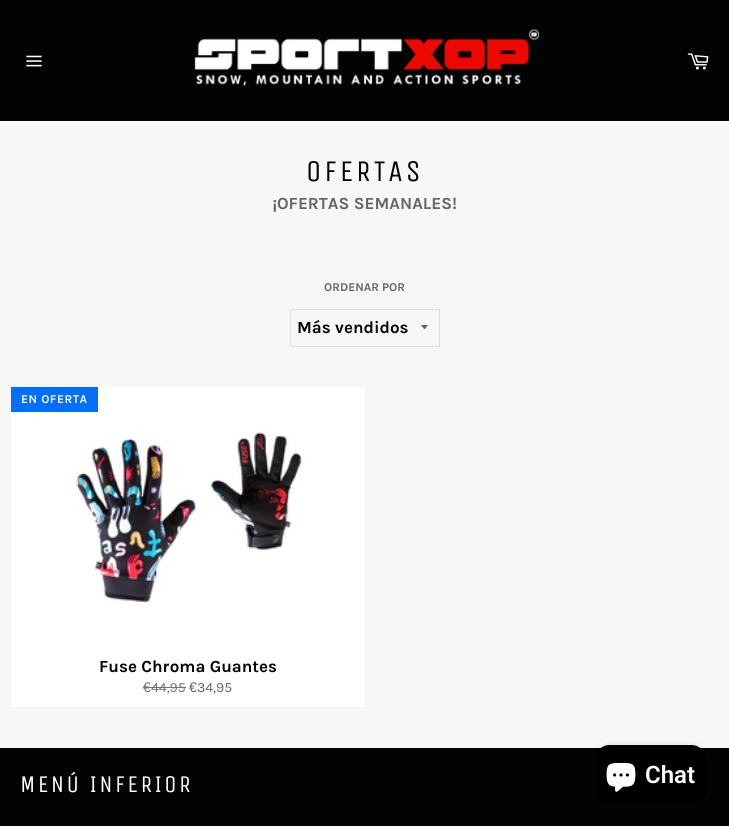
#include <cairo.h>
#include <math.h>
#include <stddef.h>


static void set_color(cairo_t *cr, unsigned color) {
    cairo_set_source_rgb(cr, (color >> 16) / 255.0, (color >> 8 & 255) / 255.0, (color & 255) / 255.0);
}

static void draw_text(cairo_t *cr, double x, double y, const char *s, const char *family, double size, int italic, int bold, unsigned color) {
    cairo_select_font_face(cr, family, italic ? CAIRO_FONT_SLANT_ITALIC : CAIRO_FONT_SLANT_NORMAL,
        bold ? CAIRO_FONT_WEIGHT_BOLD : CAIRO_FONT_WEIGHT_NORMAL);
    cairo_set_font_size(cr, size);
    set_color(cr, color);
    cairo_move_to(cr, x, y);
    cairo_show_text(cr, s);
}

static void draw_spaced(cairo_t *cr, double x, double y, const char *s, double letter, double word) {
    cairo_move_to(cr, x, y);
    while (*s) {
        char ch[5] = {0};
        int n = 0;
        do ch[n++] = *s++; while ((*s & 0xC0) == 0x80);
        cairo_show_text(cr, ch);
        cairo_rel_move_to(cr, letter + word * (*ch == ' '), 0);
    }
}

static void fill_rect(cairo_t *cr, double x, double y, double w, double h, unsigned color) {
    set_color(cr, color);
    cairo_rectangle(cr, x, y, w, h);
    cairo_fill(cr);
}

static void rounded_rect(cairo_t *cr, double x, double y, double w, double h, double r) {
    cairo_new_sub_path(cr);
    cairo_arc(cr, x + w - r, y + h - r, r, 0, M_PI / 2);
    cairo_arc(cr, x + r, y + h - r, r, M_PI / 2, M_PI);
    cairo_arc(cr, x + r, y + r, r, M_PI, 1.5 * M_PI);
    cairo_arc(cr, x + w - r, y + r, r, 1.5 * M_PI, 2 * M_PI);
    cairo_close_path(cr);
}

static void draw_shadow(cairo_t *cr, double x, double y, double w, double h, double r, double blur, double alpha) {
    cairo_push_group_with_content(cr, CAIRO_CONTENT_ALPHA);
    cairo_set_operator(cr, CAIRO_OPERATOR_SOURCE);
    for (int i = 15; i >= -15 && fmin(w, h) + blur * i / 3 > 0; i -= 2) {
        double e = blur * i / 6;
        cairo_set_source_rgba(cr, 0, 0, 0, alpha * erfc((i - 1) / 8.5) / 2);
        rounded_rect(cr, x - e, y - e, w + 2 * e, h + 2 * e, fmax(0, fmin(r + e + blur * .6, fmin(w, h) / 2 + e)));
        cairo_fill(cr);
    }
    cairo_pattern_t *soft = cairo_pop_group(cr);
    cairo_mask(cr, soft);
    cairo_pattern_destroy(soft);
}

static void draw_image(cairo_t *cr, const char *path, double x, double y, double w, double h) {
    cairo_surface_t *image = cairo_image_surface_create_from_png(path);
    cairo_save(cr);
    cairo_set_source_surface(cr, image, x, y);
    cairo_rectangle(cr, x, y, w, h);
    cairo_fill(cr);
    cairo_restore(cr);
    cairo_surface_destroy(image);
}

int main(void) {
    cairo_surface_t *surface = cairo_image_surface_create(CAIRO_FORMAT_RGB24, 729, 826);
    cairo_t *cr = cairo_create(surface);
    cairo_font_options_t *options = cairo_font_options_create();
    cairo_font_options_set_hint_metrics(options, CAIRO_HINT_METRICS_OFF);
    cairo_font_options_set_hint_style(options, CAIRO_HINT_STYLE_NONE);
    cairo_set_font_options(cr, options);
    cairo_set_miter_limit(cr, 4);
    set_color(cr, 0xF7F7F7);
    cairo_paint(cr);
    fill_rect(cr, 0, 0, 729, 121, 0x030303);
    draw_image(cr, "assets/img1.png", 26, 55, 16, 12);
    draw_image(cr, "assets/img2.png", 194, 29, 346, 57);
    draw_image(cr, "assets/img3.png", 687, 53, 22, 17);
    cairo_select_font_face(cr, "Unica One", CAIRO_FONT_SLANT_NORMAL, CAIRO_FONT_WEIGHT_NORMAL);
    cairo_set_font_size(cr, 30);
    draw_spaced(cr, 306, 181, "OFERTAS", 3, 0);
    draw_text(cr, 272, 209, "¡", "Liberation Sans", 17, 0, 1, 0x666666);
    draw_text(cr, 277, 209, "OFERTAS SEMANALES!", "Karla", 17, 0, 1, 0x666666);
    draw_text(cr, 324, 291, "ORDENAR POR", "Karla", 12, 0, 1, 0x666666);
    cairo_new_path(cr);
    cairo_move_to(cr, 421, 325);
    cairo_curve_to(cr, 425.5, 330.5, 423.5, 330.5, 428, 325);
    cairo_close_path(cr);
    cairo_fill(cr);
    cairo_rectangle(cr, 290.5, 309.5, 149, 37);
    set_color(cr, 0xDEDEDE);
    cairo_set_line_width(cr, 1);
    cairo_stroke(cr);
    draw_text(cr, 297, 333, "Más vendidos", "Karla", 17, 0, 1, 0x030303);
    fill_rect(cr, 11, 387, 354, 320, 0xFFFFFF);
    fill_rect(cr, 11, 387, 87, 25, 0x006EFF);
    cairo_set_font_size(cr, 12);
    set_color(cr, 0xFFFFFF);
    draw_spaced(cr, 21, 403, "EN OFERTA", 0.5, 0);
    draw_image(cr, "assets/img4.png", 70, 431, 235, 172);
    draw_text(cr, 99, 672, "Fuse Chroma Guantes", "Karla", 17, 0, 1, 0x030303);
    draw_text(cr, 143, 692, "€", "Liberation Sans", 14, 0, 0, 0x737373);
    fill_rect(cr, 143, 687, 43, 1, 0x737373);
    draw_text(cr, 151, 692, "44,95", "Karla", 14, 0, 0, 0x737373);
    draw_text(cr, 189, 692, "€", "Liberation Sans", 14, 0, 0, 0x666666);
    draw_text(cr, 197, 692, "34,95", "Karla", 14, 0, 0, 0x666666);
    fill_rect(cr, 0, 748, 729, 78, 0x030303);
    cairo_select_font_face(cr, "Unica One", CAIRO_FONT_SLANT_NORMAL, CAIRO_FONT_WEIGHT_NORMAL);
    cairo_set_font_size(cr, 24);
    set_color(cr, 0xFFFFFF);
    draw_spaced(cr, 20, 792, "MENÚ INFERIOR", 2.4, 0);
    set_color(cr, 0x000000);
    draw_shadow(cr, 594, 745, 113, 60, 16, 2.5, 0.15);
    set_color(cr, 0x000000);
    rounded_rect(cr, 594, 745, 113, 60, 16);
    cairo_fill(cr);
    draw_image(cr, "assets/img5.png", 606, 763, 30, 29);
    draw_text(cr, 645, 783, "Chat", "Roboto SemiBold", 24, 0, 0, 0xFFFFFF);
    cairo_surface_write_to_png(surface, "output.png");
    cairo_font_options_destroy(options);
    cairo_destroy(cr);
    cairo_surface_destroy(surface);
    return 0;
}
